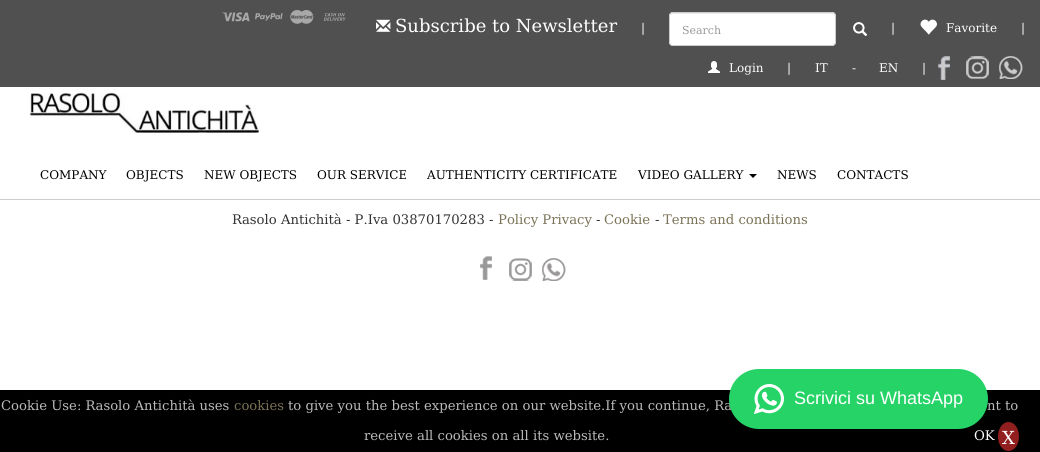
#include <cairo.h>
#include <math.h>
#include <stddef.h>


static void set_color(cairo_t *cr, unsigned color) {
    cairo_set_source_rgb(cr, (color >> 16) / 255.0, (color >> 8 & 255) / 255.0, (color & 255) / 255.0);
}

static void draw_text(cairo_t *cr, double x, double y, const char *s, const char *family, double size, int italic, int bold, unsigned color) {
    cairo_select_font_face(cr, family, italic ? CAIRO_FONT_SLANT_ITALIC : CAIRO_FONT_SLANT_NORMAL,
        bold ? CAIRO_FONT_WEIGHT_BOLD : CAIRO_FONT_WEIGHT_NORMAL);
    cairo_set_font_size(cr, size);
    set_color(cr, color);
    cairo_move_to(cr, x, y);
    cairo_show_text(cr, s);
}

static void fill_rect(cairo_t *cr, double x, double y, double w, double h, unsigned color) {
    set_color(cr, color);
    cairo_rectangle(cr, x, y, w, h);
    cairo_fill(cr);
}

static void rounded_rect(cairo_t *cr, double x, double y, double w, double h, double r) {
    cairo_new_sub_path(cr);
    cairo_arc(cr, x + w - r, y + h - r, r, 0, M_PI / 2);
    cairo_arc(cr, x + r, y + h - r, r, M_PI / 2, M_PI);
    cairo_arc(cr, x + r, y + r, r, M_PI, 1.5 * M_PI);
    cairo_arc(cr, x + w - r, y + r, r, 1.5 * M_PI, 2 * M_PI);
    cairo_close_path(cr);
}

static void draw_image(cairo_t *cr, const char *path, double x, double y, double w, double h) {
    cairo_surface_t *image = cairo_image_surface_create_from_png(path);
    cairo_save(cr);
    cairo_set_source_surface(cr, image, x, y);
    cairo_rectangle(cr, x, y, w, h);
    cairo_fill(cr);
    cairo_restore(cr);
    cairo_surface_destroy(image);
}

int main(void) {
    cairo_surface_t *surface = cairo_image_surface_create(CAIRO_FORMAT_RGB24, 1040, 452);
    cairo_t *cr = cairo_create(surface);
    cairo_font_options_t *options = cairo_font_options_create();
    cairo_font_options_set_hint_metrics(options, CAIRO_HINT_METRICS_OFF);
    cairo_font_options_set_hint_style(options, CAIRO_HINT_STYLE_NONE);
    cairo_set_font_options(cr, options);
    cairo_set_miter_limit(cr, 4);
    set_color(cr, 0xFFFFFF);
    cairo_paint(cr);
    fill_rect(cr, 0, 199, 1040, 1, 0xCCCCCC);
    fill_rect(cr, 0, 0, 1040, 87, 0x505050);
    draw_image(cr, "assets/img1.png", 222, 12, 28, 10);
    draw_image(cr, "assets/img2.png", 255, 13, 28, 8);
    draw_image(cr, "assets/img3.png", 290, 10, 24, 14);
    draw_image(cr, "assets/img4.png", 323, 13, 23, 8);
    draw_image(cr, "assets/img5.png", 376, 19, 15, 13);
    draw_text(cr, 395, 32, "Subscribe to Newsletter", "DejaVu Serif", 18, 0, 0, 0xFFFFFF);
    draw_text(cr, 641, 32, "|", "DejaVu Serif", 12, 0, 0, 0xFFFFFF);
    rounded_rect(cr, 669, 12, 167, 34, 4);
    cairo_fill(cr);
    set_color(cr, 0xECECEC);
    cairo_new_path(cr);
    cairo_move_to(cr, 673, 14);
    cairo_line_to(cr, 832, 14);
    cairo_curve_to(cr, 834, 14, 835, 15, 835, 17);
    cairo_curve_to(cr, 835, 15, 834, 13, 832, 13);
    cairo_line_to(cr, 673, 13);
    cairo_curve_to(cr, 671, 13, 670, 15, 670, 17);
    cairo_curve_to(cr, 670, 15, 671, 14, 673, 14);
    cairo_close_path(cr);
    cairo_fill(cr);
    rounded_rect(cr, 669.5, 12.5, 166, 33, 3.5);
    set_color(cr, 0xCCCCCC);
    cairo_set_line_width(cr, 1);
    cairo_stroke(cr);
    draw_text(cr, 682, 34, "Search", "DejaVu Serif", 11, 0, 0, 0x999999);
    draw_image(cr, "assets/img6.png", 853, 22, 15, 14);
    draw_text(cr, 891, 32, "|", "DejaVu Serif", 12, 0, 0, 0xFFFFFF);
    draw_image(cr, "assets/img7.png", 920, 19, 17, 16);
    draw_text(cr, 946, 32, "Favorite", "DejaVu Serif", 12, 0, 0, 0xFFFFFF);
    draw_text(cr, 1021, 32, "|", "DejaVu Serif", 12, 0, 0, 0xFFFFFF);
    draw_image(cr, "assets/img8.png", 708, 61, 12, 12);
    draw_text(cr, 729, 72, "Login", "DejaVu Serif", 12, 0, 0, 0xFFFFFF);
    draw_text(cr, 787, 72, "|", "DejaVu Serif", 12, 0, 0, 0xFFFFFF);
    draw_text(cr, 815, 72, "IT", "DejaVu Serif", 12, 0, 0, 0xFFFFFF);
    draw_text(cr, 852, 72, "-", "DejaVu Serif", 12, 0, 0, 0xFFFFFF);
    draw_text(cr, 879, 72, "EN", "DejaVu Serif", 12, 0, 0, 0xFFFFFF);
    draw_text(cr, 922, 72, "|", "DejaVu Serif", 12, 0, 0, 0xFFFFFF);
    draw_image(cr, "assets/img9.png", 938, 56, 12, 24);
    draw_image(cr, "assets/img10.png", 966, 56, 23, 23);
    draw_image(cr, "assets/img11.png", 999, 56, 24, 23);
    draw_image(cr, "assets/img12.png", 30, 92, 229, 41);
    draw_text(cr, 40, 179, "COMPANY", "DejaVu Serif", 12, 0, 0, 0x000000);
    draw_text(cr, 126, 179, "OBJECTS", "DejaVu Serif", 12, 0, 0, 0x000000);
    draw_text(cr, 204, 179, "NEW OBJECTS", "DejaVu Serif", 12, 0, 0, 0x000000);
    draw_text(cr, 317, 179, "OUR SERVICE", "DejaVu Serif", 12, 0, 0, 0x000000);
    draw_text(cr, 427, 179, "AUTHENTICITY CERTIFICATE", "DejaVu Serif", 12, 0, 0, 0x000000);
    draw_text(cr, 638, 179, "VIDEO GALLERY", "DejaVu Serif", 12, 0, 0, 0x000000);
    cairo_new_path(cr);
    cairo_move_to(cr, 749, 174);
    cairo_line_to(cr, 757, 174);
    cairo_line_to(cr, 753, 178);
    cairo_close_path(cr);
    cairo_fill(cr);
    draw_text(cr, 777, 179, "NEWS", "DejaVu Serif", 12, 0, 0, 0x000000);
    draw_text(cr, 837, 179, "CONTACTS", "DejaVu Serif", 12, 0, 0, 0x000000);
    draw_text(cr, 232, 224, "Rasolo Antichità - P.Iva 03870170283 -", "DejaVu Serif", 13.2, 0, 0, 0x333333);
    draw_text(cr, 498, 224, "Policy Privacy", "DejaVu Serif", 13.2, 0, 0, 0x7A7256);
    draw_text(cr, 596, 224, "-", "DejaVu Serif", 13.2, 0, 0, 0x333333);
    draw_text(cr, 604, 224, "Cookie", "DejaVu Serif", 13.2, 0, 0, 0x7A7256);
    draw_text(cr, 655, 224, "-", "DejaVu Serif", 13.2, 0, 0, 0x333333);
    draw_text(cr, 663, 224, "Terms and conditions", "DejaVu Serif", 13.2, 0, 0, 0x7A7256);
    draw_image(cr, "assets/img13.png", 480, 256, 12, 24);
    draw_image(cr, "assets/img14.png", 509, 258, 23, 23);
    draw_image(cr, "assets/img15.png", 542, 258, 24, 23);
    fill_rect(cr, 0, 390, 1040, 62, 0x000000);
    draw_text(cr, 288, 410, "to give you the best experience on our website.If you continue, Ra", "DejaVu Serif", 13.2, 0, 0, 0xBBBBBB);
    draw_text(cr, 987, 410, "nt to", "DejaVu Serif", 13.2, 0, 0, 0xBBBBBB);
    set_color(cr, 0x25D366);
    rounded_rect(cr, 729, 369, 259, 60, 30);
    cairo_fill(cr);
    draw_image(cr, "assets/img16.png", 754, 384, 30, 30);
    draw_text(cr, 794, 404, "Scrivici su WhatsApp", "Liberation Sans", 18, 0, 0, 0xFFFFFF);
    draw_text(cr, 1, 410, "Cookie Use: Rasolo Antichità uses", "DejaVu Serif", 13.2, 0, 0, 0xBBBBBB);
    draw_text(cr, 234, 410, "cookies", "DejaVu Serif", 13.2, 0, 0, 0x7A7256);
    draw_text(cr, 364, 440, "receive all cookies on all its website.", "DejaVu Serif", 13.2, 0, 0, 0xBBBBBB);
    draw_text(cr, 974, 440, "OK", "DejaVu Serif", 13.2, 0, 0, 0xFFFFFF);
    set_color(cr, 0x911F1F);
    cairo_new_path(cr);
    cairo_move_to(cr, 1008.5, 422);
    cairo_curve_to(cr, 1014.5, 422, 1019, 428.5, 1019, 436.5);
    cairo_curve_to(cr, 1019, 444.5, 1014.5, 451, 1008.5, 451);
    cairo_curve_to(cr, 1002.5, 451, 998, 444.5, 998, 436.5);
    cairo_curve_to(cr, 998, 428.5, 1002.5, 422, 1008.5, 422);
    cairo_close_path(cr);
    cairo_fill(cr);
    draw_text(cr, 1002, 444, "X", "DejaVu Serif", 18, 0, 0, 0xFFFFFF);
    cairo_surface_write_to_png(surface, "output.png");
    cairo_font_options_destroy(options);
    cairo_destroy(cr);
    cairo_surface_destroy(surface);
    return 0;
}
